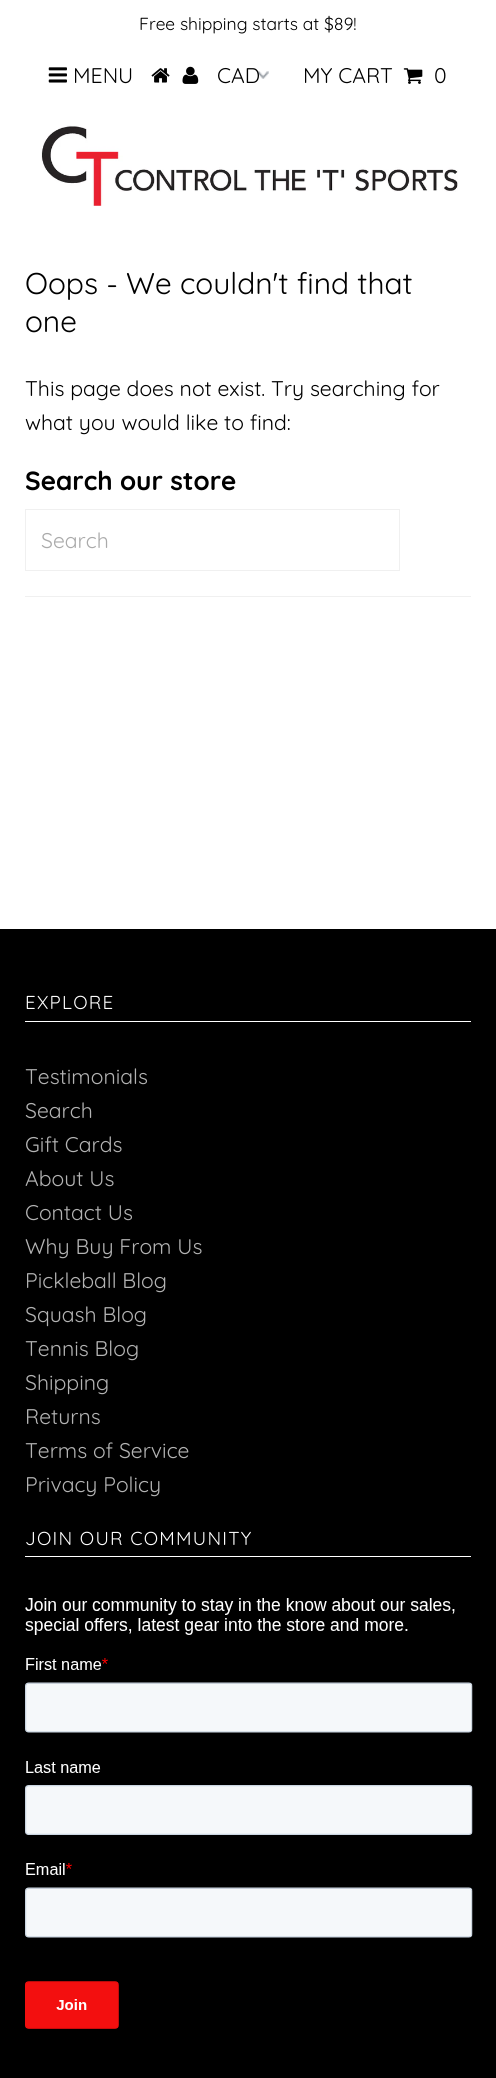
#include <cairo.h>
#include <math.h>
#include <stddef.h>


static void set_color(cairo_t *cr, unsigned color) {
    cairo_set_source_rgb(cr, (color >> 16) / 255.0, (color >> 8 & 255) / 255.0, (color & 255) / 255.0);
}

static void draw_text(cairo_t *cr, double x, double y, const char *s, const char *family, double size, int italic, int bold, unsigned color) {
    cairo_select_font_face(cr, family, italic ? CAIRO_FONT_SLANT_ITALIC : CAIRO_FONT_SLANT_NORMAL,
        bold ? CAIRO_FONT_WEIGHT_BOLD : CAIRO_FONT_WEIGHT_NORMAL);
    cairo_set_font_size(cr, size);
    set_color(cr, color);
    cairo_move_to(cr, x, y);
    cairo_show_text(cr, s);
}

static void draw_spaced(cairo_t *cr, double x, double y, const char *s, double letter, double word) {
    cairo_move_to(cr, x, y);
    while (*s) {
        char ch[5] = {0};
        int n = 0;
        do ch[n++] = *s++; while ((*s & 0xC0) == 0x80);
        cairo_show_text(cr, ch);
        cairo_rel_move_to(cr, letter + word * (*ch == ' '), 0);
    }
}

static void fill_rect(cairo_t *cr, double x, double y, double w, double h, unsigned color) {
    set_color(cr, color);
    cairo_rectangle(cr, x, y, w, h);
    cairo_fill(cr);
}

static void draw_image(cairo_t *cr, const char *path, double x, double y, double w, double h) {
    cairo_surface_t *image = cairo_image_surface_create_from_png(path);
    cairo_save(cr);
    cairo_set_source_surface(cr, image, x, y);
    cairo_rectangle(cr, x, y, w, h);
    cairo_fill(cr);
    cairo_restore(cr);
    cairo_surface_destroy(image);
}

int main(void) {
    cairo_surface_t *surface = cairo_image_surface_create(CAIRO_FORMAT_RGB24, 496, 2078);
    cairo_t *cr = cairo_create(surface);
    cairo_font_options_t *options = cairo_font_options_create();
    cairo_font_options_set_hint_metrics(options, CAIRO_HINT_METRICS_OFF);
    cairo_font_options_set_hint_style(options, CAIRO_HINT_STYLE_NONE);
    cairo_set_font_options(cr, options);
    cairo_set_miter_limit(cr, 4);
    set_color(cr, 0xFFFFFF);
    cairo_paint(cr);
    draw_text(cr, 139, 30, "Free shipping starts at $89!", "Quicksand", 17.5, 0, 0, 0x000000);
    draw_image(cr, "assets/img1.png", 48, 67, 19, 16);
    draw_text(cr, 73, 83, "MENU", "Quicksand", 21.25, 0, 0, 0x000000);
    draw_image(cr, "assets/img2.png", 151, 68, 19, 15);
    draw_image(cr, "assets/img3.png", 182, 66, 17, 18);
    draw_image(cr, "assets/img4.png", 257, 71, 12, 8);
    draw_text(cr, 217, 83, "CAD", "Quicksand", 21.25, 0, 0, 0x000000);
    draw_text(cr, 303, 83, "MY CART", "Quicksand", 21.25, 0, 0, 0x000000);
    draw_image(cr, "assets/img5.png", 403, 68, 20, 16);
    draw_text(cr, 434, 83, "0", "Quicksand", 21.25, 0, 0, 0x000000);
    draw_image(cr, "assets/img6.png", 41, 125, 417, 81);
    draw_text(cr, 25, 294, "Oops - We couldn't find that", "Quicksand", 30, 0, 0, 0x000000);
    draw_text(cr, 25, 332, "one", "Quicksand", 30, 0, 0, 0x000000);
    draw_text(cr, 25, 396, "This page does not exist. Try searching for", "Quicksand", 21.25, 0, 0, 0x000000);
    draw_text(cr, 25, 430, "what you would like to find:", "Quicksand", 21.25, 0, 0, 0x000000);
    fill_rect(cr, 25, 596, 446, 1, 0xF0F0F0);
    draw_text(cr, 25, 490, "Search our store", "Quicksand", 26.25, 0, 1, 0x000000);
    cairo_rectangle(cr, 25.5, 509.5, 374, 61);
    set_color(cr, 0xF0F0F0);
    cairo_set_line_width(cr, 1);
    cairo_stroke(cr);
    draw_text(cr, 41, 548, "Search", "Quicksand", 21.25, 0, 0, 0xAAAAAA);
    fill_rect(cr, 0, 929, 496, 1149, 0x000000);
    fill_rect(cr, 25, 1021, 446, 1, 0xFFFFFF);
    cairo_set_font_size(cr, 18.75);
    draw_spaced(cr, 25, 1009, "EXPLORE", 1.25, 0);
    draw_text(cr, 25, 1084, "Testimonials", "Quicksand", 21.25, 0, 0, 0xB3B3B3);
    draw_text(cr, 25, 1118, "Search", "Quicksand", 21.25, 0, 0, 0xB3B3B3);
    draw_text(cr, 25, 1152, "Gift Cards", "Quicksand", 21.25, 0, 0, 0xB3B3B3);
    draw_text(cr, 25, 1186, "About Us", "Quicksand", 21.25, 0, 0, 0xB3B3B3);
    draw_text(cr, 25, 1220, "Contact Us", "Quicksand", 21.25, 0, 0, 0xB3B3B3);
    draw_text(cr, 25, 1254, "Why Buy From Us", "Quicksand", 21.25, 0, 0, 0xB3B3B3);
    draw_text(cr, 25, 1288, "Pickleball Blog", "Quicksand", 21.25, 0, 0, 0xB3B3B3);
    draw_text(cr, 25, 1322, "Squash Blog", "Quicksand", 21.25, 0, 0, 0xB3B3B3);
    draw_text(cr, 25, 1356, "Tennis Blog", "Quicksand", 21.25, 0, 0, 0xB3B3B3);
    draw_text(cr, 25, 1390, "Shipping", "Quicksand", 21.25, 0, 0, 0xB3B3B3);
    draw_text(cr, 25, 1424, "Returns", "Quicksand", 21.25, 0, 0, 0xB3B3B3);
    draw_text(cr, 25, 1458, "Terms of Service", "Quicksand", 21.25, 0, 0, 0xB3B3B3);
    draw_text(cr, 25, 1492, "Privacy Policy", "Quicksand", 21.25, 0, 0, 0xB3B3B3);
    fill_rect(cr, 25, 1556, 446, 1, 0xFFFFFF);
    cairo_set_font_size(cr, 18.75);
    draw_spaced(cr, 25, 1545, "JOIN OUR COMMUNITY", 1.25, 0);
    draw_image(cr, "assets/img7.png", 25, 1598, 448, 431);
    cairo_surface_write_to_png(surface, "output.png");
    cairo_font_options_destroy(options);
    cairo_destroy(cr);
    cairo_surface_destroy(surface);
    return 0;
}
